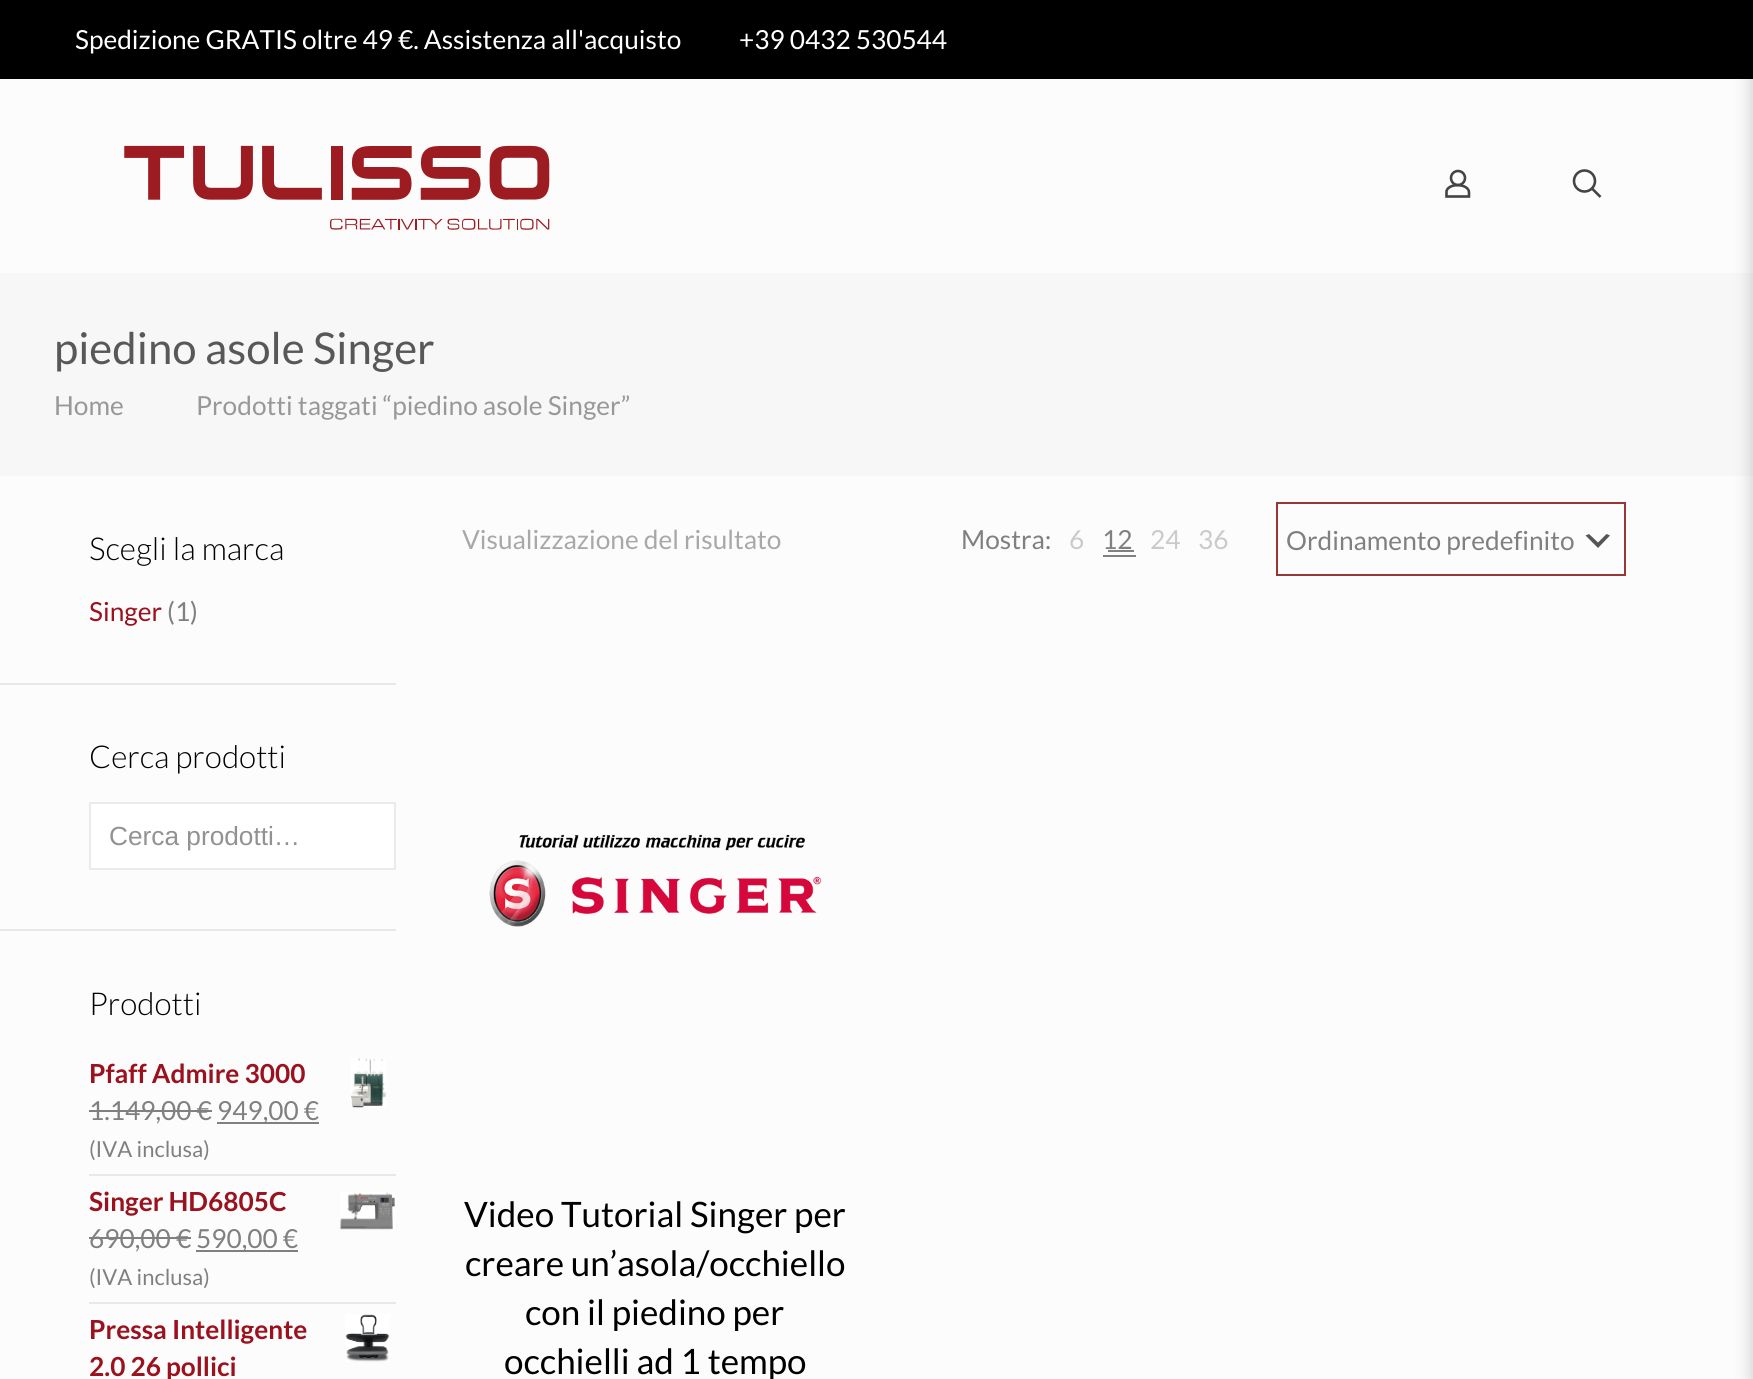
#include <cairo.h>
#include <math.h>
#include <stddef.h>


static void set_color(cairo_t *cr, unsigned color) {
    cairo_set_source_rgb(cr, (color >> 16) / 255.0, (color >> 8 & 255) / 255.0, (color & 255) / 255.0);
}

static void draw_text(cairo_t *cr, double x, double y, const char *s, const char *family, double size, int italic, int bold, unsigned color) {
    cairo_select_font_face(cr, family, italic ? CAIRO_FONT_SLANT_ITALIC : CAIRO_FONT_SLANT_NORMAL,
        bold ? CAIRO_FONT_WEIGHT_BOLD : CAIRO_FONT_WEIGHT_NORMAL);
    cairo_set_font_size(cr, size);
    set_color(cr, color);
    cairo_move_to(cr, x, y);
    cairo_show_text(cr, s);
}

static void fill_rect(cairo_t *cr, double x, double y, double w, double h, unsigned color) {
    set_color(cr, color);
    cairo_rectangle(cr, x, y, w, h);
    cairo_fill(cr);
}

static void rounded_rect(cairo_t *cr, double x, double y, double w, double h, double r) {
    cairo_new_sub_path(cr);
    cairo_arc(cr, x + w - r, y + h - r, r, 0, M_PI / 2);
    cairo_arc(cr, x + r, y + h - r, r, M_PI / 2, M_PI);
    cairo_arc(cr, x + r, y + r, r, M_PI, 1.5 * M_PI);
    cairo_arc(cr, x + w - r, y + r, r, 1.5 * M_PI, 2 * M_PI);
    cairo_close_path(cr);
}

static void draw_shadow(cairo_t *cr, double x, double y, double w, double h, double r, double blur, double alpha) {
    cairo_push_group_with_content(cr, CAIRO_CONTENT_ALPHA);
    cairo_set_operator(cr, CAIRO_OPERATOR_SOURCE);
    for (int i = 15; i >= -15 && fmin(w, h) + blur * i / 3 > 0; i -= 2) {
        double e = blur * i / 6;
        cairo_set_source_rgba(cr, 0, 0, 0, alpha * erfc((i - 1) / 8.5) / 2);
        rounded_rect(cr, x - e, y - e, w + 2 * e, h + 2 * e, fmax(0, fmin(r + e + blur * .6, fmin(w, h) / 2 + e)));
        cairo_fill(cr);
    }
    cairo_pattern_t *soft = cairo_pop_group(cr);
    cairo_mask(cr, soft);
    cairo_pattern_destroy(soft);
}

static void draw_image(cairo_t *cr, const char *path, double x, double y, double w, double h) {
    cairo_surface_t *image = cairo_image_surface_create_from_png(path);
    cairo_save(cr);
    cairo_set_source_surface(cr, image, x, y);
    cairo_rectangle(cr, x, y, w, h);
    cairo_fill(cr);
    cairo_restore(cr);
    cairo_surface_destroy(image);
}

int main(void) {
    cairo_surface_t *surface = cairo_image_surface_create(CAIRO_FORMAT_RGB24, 1753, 1379);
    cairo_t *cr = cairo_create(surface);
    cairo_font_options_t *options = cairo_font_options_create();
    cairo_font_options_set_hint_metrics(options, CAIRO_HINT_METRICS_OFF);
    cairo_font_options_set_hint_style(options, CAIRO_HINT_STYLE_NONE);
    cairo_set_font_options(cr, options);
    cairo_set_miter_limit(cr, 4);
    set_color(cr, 0xFCFCFC);
    cairo_paint(cr);
    fill_rect(cr, 0, 0, 1753, 79, 0x000000);
    draw_text(cr, 75, 49, "Spedizione GRATIS oltre 49 €. Assistenza all'acquisto", "Lato", 26.25, 0, 0, 0xFFFFFF);
    draw_text(cr, 739, 49, "+39 0432 530544", "Lato", 26.25, 0, 0, 0xFFFFFF);
    draw_image(cr, "assets/img1.png", 124, 145, 426, 85);
    cairo_arc(cr, 1458, 178, 7, 0, 2 * M_PI);
    set_color(cr, 0x444444);
    cairo_set_line_width(cr, 2.6);
    cairo_stroke(cr);
    cairo_new_path(cr);
    cairo_move_to(cr, 1469, 192.5);
    cairo_line_to(cr, 1469, 196.5);
    cairo_line_to(cr, 1446.5, 196.5);
    cairo_line_to(cr, 1446.5, 191);
    cairo_curve_to(cr, 1449, 182.5, 1469, 183.5, 1469, 192.5);
    cairo_close_path(cr);
    cairo_stroke(cr);
    cairo_arc(cr, 1584.5, 181, 10.5, 0, 2 * M_PI);
    cairo_stroke(cr);
    cairo_new_path(cr);
    cairo_move_to(cr, 1592, 188.5);
    cairo_line_to(cr, 1600.5, 197);
    cairo_stroke(cr);
    fill_rect(cr, 0, 273, 1753, 203, 0xF7F7F7);
    draw_text(cr, 54, 364, "piedino asole Singer", "Lato", 43.75, 0, 0, 0x585858);
    draw_text(cr, 54, 415, "Home", "Lato", 26.25, 0, 0, 0x989898);
    draw_text(cr, 196, 415, "Prodotti taggati “piedino asole Singer”", "Lato", 26.25, 0, 0, 0x989898);
    draw_text(cr, 89, 560, "Scegli la marca", "Lato Light", 31.5, 0, 0, 0x000000);
    draw_text(cr, 89, 621, "Singer", "Lato", 26.25, 0, 0, 0x9B111E);
    draw_text(cr, 167, 621, "(1)", "Lato", 26.25, 0, 0, 0x808080);
    fill_rect(cr, 0, 683, 396, 2, 0xE8E8E8);
    draw_text(cr, 89, 768, "Cerca prodotti", "Lato Light", 31.5, 0, 0, 0x000000);
    set_color(cr, 0xFFFFFF);
    cairo_rectangle(cr, 90, 803, 305, 66);
    cairo_fill_preserve(cr);
    set_color(cr, 0xEBEBEB);
    cairo_set_line_width(cr, 2);
    cairo_stroke(cr);
    draw_text(cr, 109, 845, "Cerca prodotti…", "Liberation Sans", 26.25, 0, 0, 0x929292);
    fill_rect(cr, 0, 929, 396, 2, 0xE8E8E8);
    draw_text(cr, 89, 1015, "Prodotti", "Lato Light", 31.5, 0, 0, 0x000000);
    fill_rect(cr, 89, 1174, 307, 2, 0xE8E8E8);
    draw_text(cr, 89, 1083, "Pfaff Admire 3000", "Lato", 26.25, 0, 1, 0x9B111E);
    draw_image(cr, "assets/img2.png", 351, 1058, 35, 50);
    draw_text(cr, 89, 1120, "1.149,00 €", "Lato", 26.25, 0, 0, 0x808080);
    fill_rect(cr, 89, 1110, 123, 2, 0x808080);
    fill_rect(cr, 217, 1122, 102, 2, 0x808080);
    draw_text(cr, 217, 1120, "949,00 €", "Lato", 26.25, 0, 0, 0x808080);
    draw_text(cr, 89, 1157, "(IVA inclusa)", "Lato", 22, 0, 0, 0x808080);
    fill_rect(cr, 89, 1302, 307, 2, 0xE8E8E8);
    draw_text(cr, 89, 1211, "Singer HD6805C", "Lato", 26.25, 0, 1, 0x9B111E);
    draw_image(cr, "assets/img3.png", 340, 1192, 55, 38);
    draw_text(cr, 89, 1248, "690,00", "Lato", 26.25, 0, 0, 0x808080);
    fill_rect(cr, 89, 1237, 88, 2, 0x808080);
    draw_text(cr, 176, 1248, "€", "Lato", 26.25, 0, 0, 0x808080);
    fill_rect(cr, 177, 1237, 14, 2, 0x808080);
    fill_rect(cr, 196, 1250, 102, 2, 0x808080);
    draw_text(cr, 196, 1248, "590,00 €", "Lato", 26.25, 0, 0, 0x808080);
    draw_text(cr, 89, 1285, "(IVA inclusa)", "Lato", 22, 0, 0, 0x808080);
    draw_text(cr, 89, 1339, "Pressa Intelligente", "Lato", 26.25, 0, 1, 0x9B111E);
    draw_image(cr, "assets/img4.png", 345, 1314, 45, 48);
    draw_text(cr, 89, 1376, "2.0 26 pollici", "Lato", 26.25, 0, 1, 0x9B111E);
    draw_text(cr, 462, 549, "Visualizzazione del risultato", "Lato", 26.25, 0, 0, 0xA8A8A8);
    draw_text(cr, 961, 549, "Mostra:", "Lato", 26.25, 0, 0, 0x808080);
    draw_text(cr, 1069, 549, "6", "Lato", 26.25, 0, 0, 0xCACACA);
    draw_text(cr, 1102, 549, "12", "Lato", 26.25, 0, 0, 0x808080);
    fill_rect(cr, 1108, 550, 26, 2, 0x808080);
    fill_rect(cr, 1103, 555, 33, 2, 0x808080);
    draw_text(cr, 1150, 549, "24", "Lato", 26.25, 0, 0, 0xCACACA);
    draw_text(cr, 1198, 549, "36", "Lato", 26.25, 0, 0, 0xCACACA);
    set_color(cr, 0x555555);
    cairo_new_path(cr);
    cairo_move_to(cr, 1589, 534);
    cairo_line_to(cr, 1598, 542.5);
    cairo_line_to(cr, 1606.5, 534);
    cairo_line_to(cr, 1610, 535.5);
    cairo_line_to(cr, 1598, 548);
    cairo_line_to(cr, 1585.5, 535.5);
    cairo_close_path(cr);
    cairo_fill(cr);
    cairo_rectangle(cr, 1277, 503, 348, 72);
    set_color(cr, 0x993737);
    cairo_stroke(cr);
    draw_text(cr, 1286, 550, "Ordinamento predefinito", "Lato", 26.25, 0, 0, 0x808080);
    draw_image(cr, "assets/img5.png", 489, 834, 333, 93);
    draw_text(cr, 464, 1227, "Video Tutorial Singer per", "Lato", 35, 0, 0, 0x000000);
    draw_text(cr, 465, 1276, "creare un’asola/occhiello", "Lato", 35, 0, 0, 0x000000);
    draw_text(cr, 525, 1325, "con il piedino per", "Lato", 35, 0, 0, 0x000000);
    draw_text(cr, 504, 1374, "occhielli ad 1 tempo", "Lato", 35, 0, 0, 0x000000);
    set_color(cr, 0x000000);
    draw_shadow(cr, 1752, -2, 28, 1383, 0, 9, 0.2);
    cairo_surface_write_to_png(surface, "output.png");
    cairo_font_options_destroy(options);
    cairo_destroy(cr);
    cairo_surface_destroy(surface);
    return 0;
}
